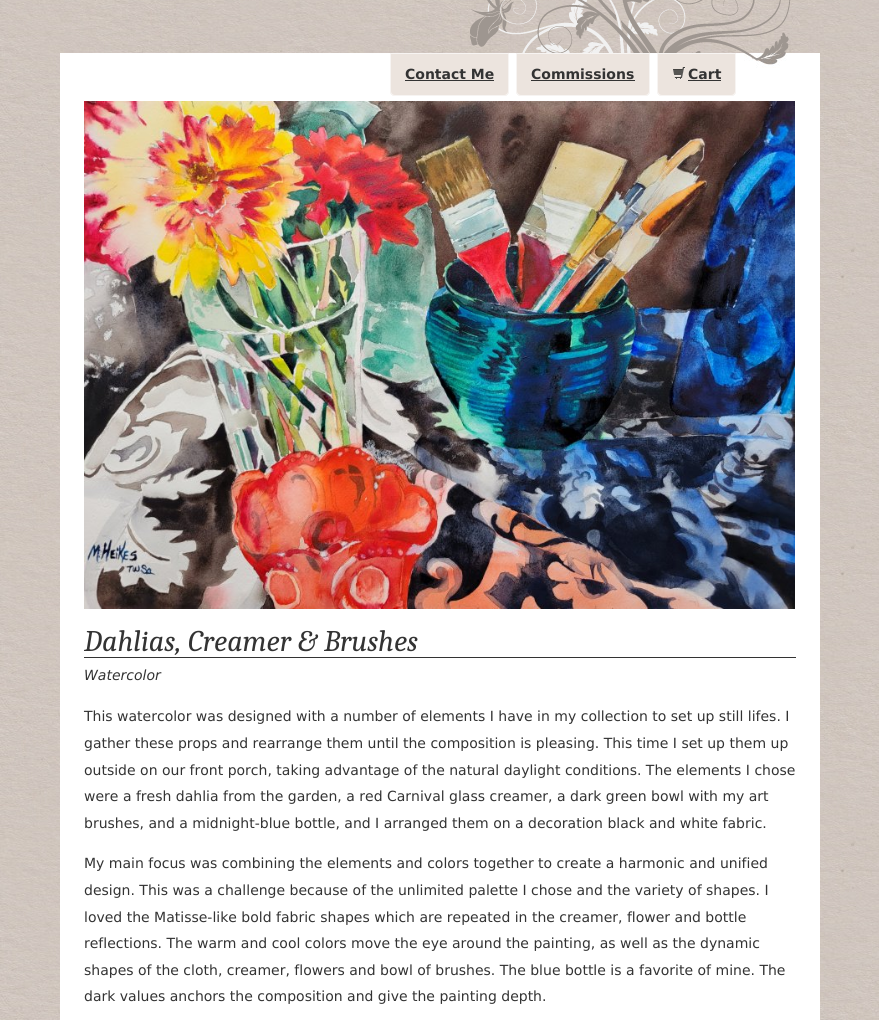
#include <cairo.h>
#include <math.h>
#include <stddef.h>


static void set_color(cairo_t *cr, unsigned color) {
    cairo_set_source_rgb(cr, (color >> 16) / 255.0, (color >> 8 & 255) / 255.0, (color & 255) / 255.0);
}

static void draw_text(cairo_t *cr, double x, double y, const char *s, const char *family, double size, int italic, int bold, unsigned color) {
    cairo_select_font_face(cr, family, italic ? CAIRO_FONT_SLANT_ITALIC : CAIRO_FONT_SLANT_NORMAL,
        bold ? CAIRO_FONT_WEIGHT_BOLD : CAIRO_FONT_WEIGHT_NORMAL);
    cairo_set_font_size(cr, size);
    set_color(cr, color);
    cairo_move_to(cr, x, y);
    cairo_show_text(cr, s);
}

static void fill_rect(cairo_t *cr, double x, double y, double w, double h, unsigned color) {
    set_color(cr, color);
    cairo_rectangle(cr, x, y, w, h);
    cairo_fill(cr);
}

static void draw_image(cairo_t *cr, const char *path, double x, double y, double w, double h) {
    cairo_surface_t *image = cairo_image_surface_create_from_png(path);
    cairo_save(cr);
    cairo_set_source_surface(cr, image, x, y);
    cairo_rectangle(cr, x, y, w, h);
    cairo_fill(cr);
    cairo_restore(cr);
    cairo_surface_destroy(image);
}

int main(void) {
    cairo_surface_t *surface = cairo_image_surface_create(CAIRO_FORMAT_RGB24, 879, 1020);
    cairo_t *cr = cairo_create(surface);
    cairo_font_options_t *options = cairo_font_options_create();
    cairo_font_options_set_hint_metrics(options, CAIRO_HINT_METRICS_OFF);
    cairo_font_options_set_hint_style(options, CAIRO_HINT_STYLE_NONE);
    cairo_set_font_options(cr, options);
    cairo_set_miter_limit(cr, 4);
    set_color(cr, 0xFFFFFF);
    cairo_paint(cr);
    draw_image(cr, "assets/img1.png", 0, 0, 879, 1020);
    draw_image(cr, "assets/img2.png", 470, 0, 321, 53);
    fill_rect(cr, 60, 53, 760, 967, 0xFFFFFF);
    draw_image(cr, "assets/img3.png", 744, 53, 43, 15);
    set_color(cr, 0xECE4DE);
    cairo_new_path(cr);
    cairo_move_to(cr, 390, 53);
    cairo_line_to(cr, 509, 53);
    cairo_line_to(cr, 509, 91);
    cairo_curve_to(cr, 509, 94, 507, 96, 504, 96);
    cairo_line_to(cr, 395, 96);
    cairo_curve_to(cr, 392, 96, 390, 94, 390, 91);
    cairo_close_path(cr);
    cairo_fill(cr);
    cairo_new_path(cr);
    cairo_move_to(cr, 390.5, 53.5);
    cairo_line_to(cr, 508.5, 53.5);
    cairo_line_to(cr, 508.5, 91);
    cairo_curve_to(cr, 508.5, 93.5, 506.5, 95.5, 504, 95.5);
    cairo_line_to(cr, 395, 95.5);
    cairo_curve_to(cr, 392.5, 95.5, 390.5, 93.5, 390.5, 91);
    cairo_close_path(cr);
    cairo_set_source_rgba(cr, 1, 1, 1, 0.6);
    cairo_set_line_width(cr, 1);
    cairo_stroke(cr);
    draw_text(cr, 405, 79, "Contact Me", "DejaVu Sans", 14, 0, 1, 0x333333);
    fill_rect(cr, 405, 80, 89, 1, 0x333333);
    set_color(cr, 0xECE4DE);
    cairo_new_path(cr);
    cairo_move_to(cr, 516, 53);
    cairo_line_to(cr, 650, 53);
    cairo_line_to(cr, 650, 91);
    cairo_curve_to(cr, 650, 94, 648, 96, 645, 96);
    cairo_line_to(cr, 521, 96);
    cairo_curve_to(cr, 518, 96, 516, 94, 516, 91);
    cairo_close_path(cr);
    cairo_fill(cr);
    cairo_new_path(cr);
    cairo_move_to(cr, 516.5, 53.5);
    cairo_line_to(cr, 649.5, 53.5);
    cairo_line_to(cr, 649.5, 91);
    cairo_curve_to(cr, 649.5, 93.5, 647.5, 95.5, 645, 95.5);
    cairo_line_to(cr, 521, 95.5);
    cairo_curve_to(cr, 518.5, 95.5, 516.5, 93.5, 516.5, 91);
    cairo_close_path(cr);
    cairo_set_source_rgba(cr, 1, 1, 1, 0.6);
    cairo_stroke(cr);
    draw_text(cr, 531, 79, "Commissions", "DejaVu Sans", 14, 0, 1, 0x333333);
    fill_rect(cr, 531, 80, 104, 1, 0x333333);
    set_color(cr, 0xECE4DE);
    cairo_new_path(cr);
    cairo_move_to(cr, 657, 53);
    cairo_line_to(cr, 736, 53);
    cairo_line_to(cr, 736, 91);
    cairo_curve_to(cr, 736, 94, 734, 96, 731, 96);
    cairo_line_to(cr, 662, 96);
    cairo_curve_to(cr, 659, 96, 657, 94, 657, 91);
    cairo_close_path(cr);
    cairo_fill(cr);
    cairo_new_path(cr);
    cairo_move_to(cr, 657.5, 53.5);
    cairo_line_to(cr, 735.5, 53.5);
    cairo_line_to(cr, 735.5, 91);
    cairo_curve_to(cr, 735.5, 93.5, 733.5, 95.5, 731, 95.5);
    cairo_line_to(cr, 662, 95.5);
    cairo_curve_to(cr, 659.5, 95.5, 657.5, 93.5, 657.5, 91);
    cairo_close_path(cr);
    cairo_set_source_rgba(cr, 1, 1, 1, 0.6);
    cairo_stroke(cr);
    draw_image(cr, "assets/img4.png", 673, 67, 12, 13);
    draw_text(cr, 688, 79, "Cart", "DejaVu Sans", 14, 0, 1, 0x333333);
    fill_rect(cr, 688, 80, 33, 1, 0x333333);
    draw_image(cr, "assets/img5.png", 84, 101, 711, 508);
    fill_rect(cr, 84, 657, 712, 1, 0x333333);
    draw_text(cr, 84, 651, "Dahlias, Creamer & Brushes", "Caladea", 30, 1, 0, 0x333333);
    draw_text(cr, 84, 680, "Watercolor", "DejaVu Sans", 14, 1, 0, 0x333333);
    draw_text(cr, 84, 721, "This watercolor was designed with a number of elements I have in my collection to set up still lifes. I", "DejaVu Sans", 14, 0, 0, 0x333333);
    draw_text(cr, 84, 748, "gather these props and rearrange them until the composition is pleasing. This time I set up them up", "DejaVu Sans", 14, 0, 0, 0x333333);
    draw_text(cr, 84, 775, "outside on our front porch, taking advantage of the natural daylight conditions. The elements I chose", "DejaVu Sans", 14, 0, 0, 0x333333);
    draw_text(cr, 84, 801, "were a fresh dahlia from the garden, a red Carnival glass creamer, a dark green bowl with my art", "DejaVu Sans", 14, 0, 0, 0x333333);
    draw_text(cr, 84, 828, "brushes, and a midnight-blue bottle, and I arranged them on a decoration black and white fabric.", "DejaVu Sans", 14, 0, 0, 0x333333);
    draw_text(cr, 84, 868, "My main focus was combining the elements and colors together to create a harmonic and unified", "DejaVu Sans", 14, 0, 0, 0x333333);
    draw_text(cr, 84, 895, "design. This was a challenge because of the unlimited palette I chose and the variety of shapes. I", "DejaVu Sans", 14, 0, 0, 0x333333);
    draw_text(cr, 84, 922, "loved the Matisse-like bold fabric shapes which are repeated in the creamer, flower and bottle", "DejaVu Sans", 14, 0, 0, 0x333333);
    draw_text(cr, 84, 948, "reflections. The warm and cool colors move the eye around the painting, as well as the dynamic", "DejaVu Sans", 14, 0, 0, 0x333333);
    draw_text(cr, 84, 975, "shapes of the cloth, creamer, flowers and bowl of brushes. The blue bottle is a favorite of mine. The", "DejaVu Sans", 14, 0, 0, 0x333333);
    draw_text(cr, 84, 1001, "dark values anchors the composition and give the painting depth.", "DejaVu Sans", 14, 0, 0, 0x333333);
    cairo_surface_write_to_png(surface, "output.png");
    cairo_font_options_destroy(options);
    cairo_destroy(cr);
    cairo_surface_destroy(surface);
    return 0;
}
